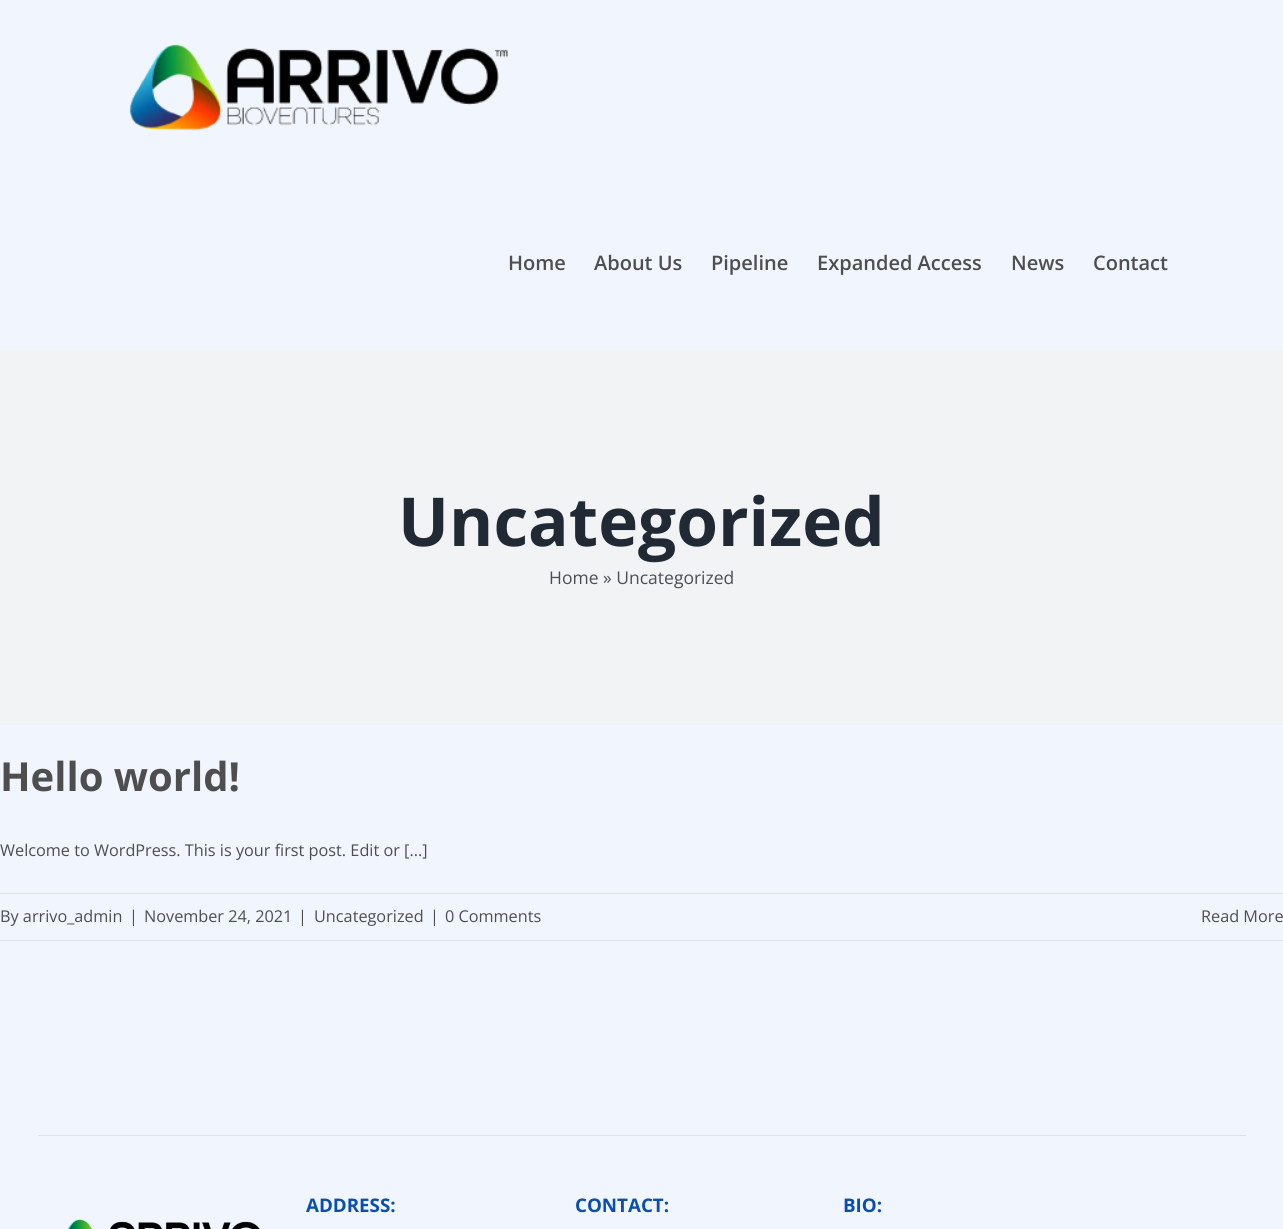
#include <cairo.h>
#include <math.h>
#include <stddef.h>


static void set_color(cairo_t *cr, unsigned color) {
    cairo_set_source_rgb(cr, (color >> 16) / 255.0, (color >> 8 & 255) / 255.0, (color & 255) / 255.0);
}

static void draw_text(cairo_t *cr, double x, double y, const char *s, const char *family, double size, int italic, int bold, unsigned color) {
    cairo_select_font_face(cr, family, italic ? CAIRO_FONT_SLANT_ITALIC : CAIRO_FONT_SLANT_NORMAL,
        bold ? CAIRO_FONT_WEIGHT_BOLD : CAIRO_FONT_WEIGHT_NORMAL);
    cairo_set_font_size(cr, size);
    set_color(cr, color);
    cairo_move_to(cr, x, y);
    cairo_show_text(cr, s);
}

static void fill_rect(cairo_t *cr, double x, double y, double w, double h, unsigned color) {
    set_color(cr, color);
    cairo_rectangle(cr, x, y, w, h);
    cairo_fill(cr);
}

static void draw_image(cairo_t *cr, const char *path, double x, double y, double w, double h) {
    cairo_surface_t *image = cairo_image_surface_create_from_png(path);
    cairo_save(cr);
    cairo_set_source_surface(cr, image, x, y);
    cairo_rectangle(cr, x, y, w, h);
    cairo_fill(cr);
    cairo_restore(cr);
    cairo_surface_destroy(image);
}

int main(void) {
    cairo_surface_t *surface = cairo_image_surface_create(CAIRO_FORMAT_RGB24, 1283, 1229);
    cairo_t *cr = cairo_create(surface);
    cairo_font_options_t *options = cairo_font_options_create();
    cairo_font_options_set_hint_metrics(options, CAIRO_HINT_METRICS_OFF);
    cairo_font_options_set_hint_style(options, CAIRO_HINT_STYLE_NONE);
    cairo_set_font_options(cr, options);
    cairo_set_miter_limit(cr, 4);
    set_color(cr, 0xF0F5FE);
    cairo_paint(cr);
    draw_image(cr, "assets/img1.png", 129, 44, 379, 87);
    draw_text(cr, 508, 270, "Home", "Open Sans SemiBold", 20, 0, 0, 0x4F4E4F);
    draw_text(cr, 594, 270, "About Us", "Open Sans SemiBold", 20, 0, 0, 0x4F4E4F);
    draw_text(cr, 711, 270, "Pipeline", "Open Sans SemiBold", 20, 0, 0, 0x4F4E4F);
    draw_text(cr, 817, 270, "Expanded Access", "Open Sans SemiBold", 20, 0, 0, 0x4F4E4F);
    draw_text(cr, 1011, 270, "News", "Open Sans SemiBold", 20, 0, 0, 0x4F4E4F);
    draw_text(cr, 1093, 270, "Contact", "Open Sans SemiBold", 20, 0, 0, 0x4F4E4F);
    fill_rect(cr, 0, 350, 1283, 375, 0xF2F3F5);
    draw_text(cr, 398, 546, "Uncategorized", "Open Sans", 67.5, 0, 1, 0x212934);
    draw_text(cr, 549, 584, "Home » Uncategorized", "Open Sans", 17.5, 0, 0, 0x4A4E57);
    draw_text(cr, 0, 791, "Hello world!", "Open Sans", 40, 0, 1, 0x4F4E4F);
    draw_text(cr, 0, 856, "Welcome to WordPress. This is your first post. Edit or [...]", "Open Sans", 16.25, 0, 0, 0x4F4E4F);
    fill_rect(cr, 0, 893, 1283, 1, 0xE2E2E2);
    fill_rect(cr, 0, 940, 1283, 1, 0xE2E2E2);
    draw_text(cr, 0, 922, "By arrivo_admin", "Open Sans", 16.25, 0, 0, 0x4F4E4F);
    draw_text(cr, 129, 922, "|", "Open Sans", 16.25, 0, 0, 0x4F4E4F);
    draw_text(cr, 144, 922, "November 24, 2021", "Open Sans", 16.25, 0, 0, 0x4F4E4F);
    draw_text(cr, 298, 922, "|", "Open Sans", 16.25, 0, 0, 0x4F4E4F);
    draw_text(cr, 314, 922, "Uncategorized", "Open Sans", 16.25, 0, 0, 0x4F4E4F);
    draw_text(cr, 430, 922, "|", "Open Sans", 16.25, 0, 0, 0x4F4E4F);
    draw_text(cr, 445, 922, "0 Comments", "Open Sans", 16.25, 0, 0, 0x4F4E4F);
    draw_text(cr, 1201, 922, "Read More", "Open Sans", 16.25, 0, 0, 0x4F4E4F);
    fill_rect(cr, 38, 1135, 1208, 1, 0xE2E2E2);
    draw_text(cr, 306, 1212, "ADDRESS:", "Open Sans", 18.75, 0, 1, 0x0A4EB1);
    draw_text(cr, 575, 1212, "CONTACT:", "Open Sans", 18.75, 0, 1, 0x0A4EB1);
    draw_text(cr, 843, 1212, "BIO:", "Open Sans", 18.75, 0, 1, 0x0A4EB1);
    draw_image(cr, "assets/img2.png", 67, 1219, 193, 10);
    cairo_surface_write_to_png(surface, "output.png");
    cairo_font_options_destroy(options);
    cairo_destroy(cr);
    cairo_surface_destroy(surface);
    return 0;
}
